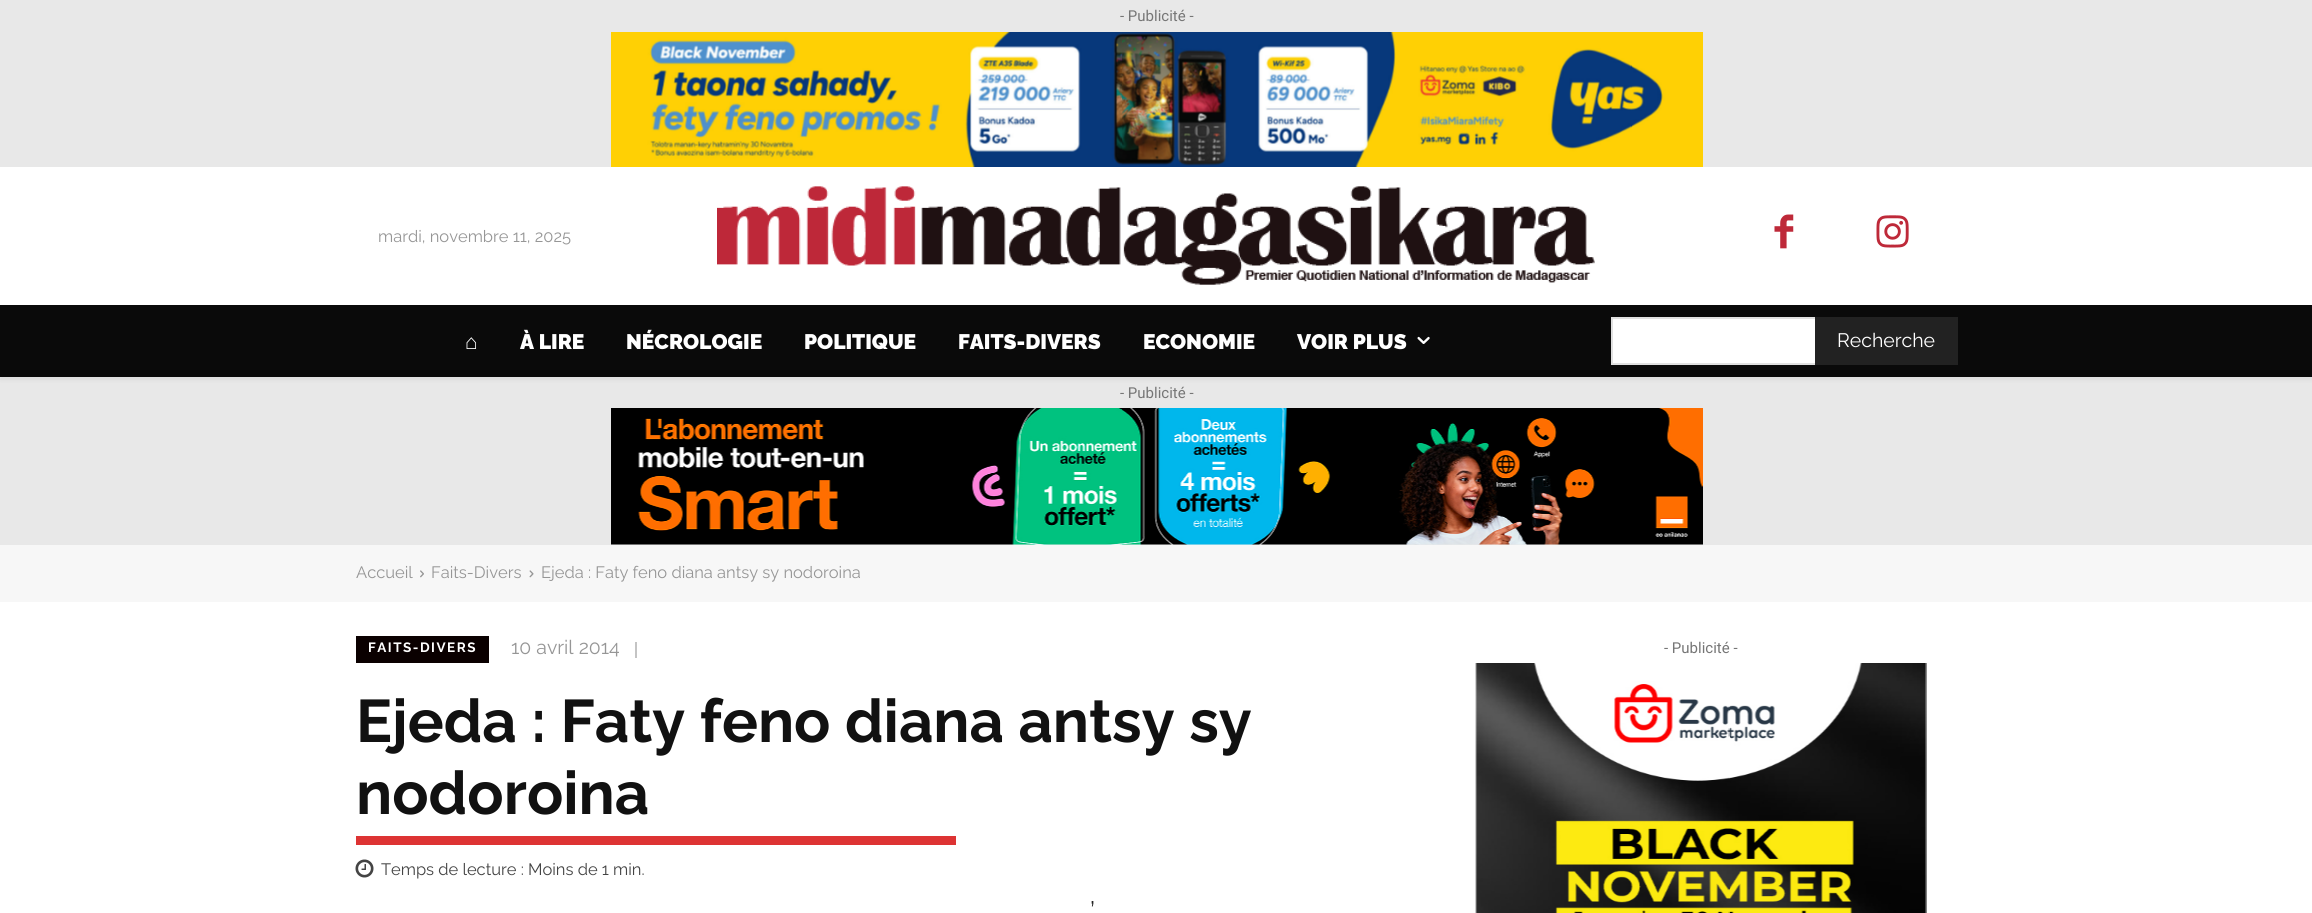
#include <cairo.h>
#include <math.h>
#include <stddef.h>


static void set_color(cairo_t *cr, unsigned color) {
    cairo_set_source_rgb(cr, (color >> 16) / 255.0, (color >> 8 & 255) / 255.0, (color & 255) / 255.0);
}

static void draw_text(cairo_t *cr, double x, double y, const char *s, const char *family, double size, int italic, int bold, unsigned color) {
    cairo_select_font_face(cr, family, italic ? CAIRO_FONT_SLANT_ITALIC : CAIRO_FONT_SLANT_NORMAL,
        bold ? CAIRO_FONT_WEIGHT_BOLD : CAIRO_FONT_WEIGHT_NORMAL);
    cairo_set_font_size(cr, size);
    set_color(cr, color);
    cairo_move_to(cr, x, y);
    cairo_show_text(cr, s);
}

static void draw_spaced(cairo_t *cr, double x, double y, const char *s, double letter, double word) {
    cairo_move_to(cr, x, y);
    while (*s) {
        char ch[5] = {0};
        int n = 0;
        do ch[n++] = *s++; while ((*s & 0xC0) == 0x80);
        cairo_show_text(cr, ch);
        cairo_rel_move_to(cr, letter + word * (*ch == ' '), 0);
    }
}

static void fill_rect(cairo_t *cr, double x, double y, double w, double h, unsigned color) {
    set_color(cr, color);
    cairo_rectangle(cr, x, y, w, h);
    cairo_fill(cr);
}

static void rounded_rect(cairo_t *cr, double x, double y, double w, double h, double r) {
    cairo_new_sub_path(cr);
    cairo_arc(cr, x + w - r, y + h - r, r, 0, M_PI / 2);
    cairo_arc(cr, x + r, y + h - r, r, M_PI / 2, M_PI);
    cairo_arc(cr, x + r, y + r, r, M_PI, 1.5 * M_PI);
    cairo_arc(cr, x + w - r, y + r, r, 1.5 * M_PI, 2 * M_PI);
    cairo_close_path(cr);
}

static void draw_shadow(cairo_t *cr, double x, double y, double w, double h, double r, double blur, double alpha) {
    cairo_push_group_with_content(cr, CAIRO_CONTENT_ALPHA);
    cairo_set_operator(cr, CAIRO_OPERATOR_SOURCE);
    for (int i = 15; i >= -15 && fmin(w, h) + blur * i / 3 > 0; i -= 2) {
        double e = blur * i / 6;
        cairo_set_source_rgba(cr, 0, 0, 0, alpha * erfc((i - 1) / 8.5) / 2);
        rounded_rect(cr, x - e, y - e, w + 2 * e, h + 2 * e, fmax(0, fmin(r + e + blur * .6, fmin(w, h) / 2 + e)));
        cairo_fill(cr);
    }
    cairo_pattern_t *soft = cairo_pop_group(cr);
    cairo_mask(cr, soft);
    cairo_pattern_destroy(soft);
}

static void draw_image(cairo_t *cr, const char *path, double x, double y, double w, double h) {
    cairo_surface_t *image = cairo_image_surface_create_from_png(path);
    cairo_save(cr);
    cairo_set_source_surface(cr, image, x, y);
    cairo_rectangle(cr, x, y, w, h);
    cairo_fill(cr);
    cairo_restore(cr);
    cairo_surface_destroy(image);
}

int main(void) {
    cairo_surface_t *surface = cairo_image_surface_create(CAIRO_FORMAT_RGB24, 2312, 913);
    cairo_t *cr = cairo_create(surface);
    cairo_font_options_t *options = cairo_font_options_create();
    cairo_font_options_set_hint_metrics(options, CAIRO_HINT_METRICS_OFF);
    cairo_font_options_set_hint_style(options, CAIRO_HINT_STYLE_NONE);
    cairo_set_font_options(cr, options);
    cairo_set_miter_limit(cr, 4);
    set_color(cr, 0xFFFFFF);
    cairo_paint(cr);
    fill_rect(cr, 0, 0, 2312, 545, 0xE8E8E8);
    draw_text(cr, 1120, 21, "- Publicité -", "Roboto", 15, 0, 0, 0x767676);
    draw_image(cr, "assets/img1.png", 611, 32, 1092, 135);
    fill_rect(cr, 0, 167, 2312, 138, 0xFFFFFF);
    draw_text(cr, 378, 242, "mardi, novembre 11, 2025", "Raleway", 16.5, 0, 0, 0x969696);
    draw_image(cr, "assets/img2.png", 717, 186, 878, 99);
    draw_image(cr, "assets/img3.png", 1774, 214, 20, 35);
    draw_image(cr, "assets/img4.png", 1876, 215, 33, 33);
    fill_rect(cr, 0, 305, 2312, 72, 0x0A0A0A);
    fill_rect(cr, 1613, 319, 202, 44, 0xFFFFFF);
    cairo_rectangle(cr, 1612, 318, 345, 46);
    set_color(cr, 0xE1E1E1);
    cairo_stroke(cr);
    fill_rect(cr, 1815, 317, 143, 48, 0x222222);
    cairo_save(cr);
    cairo_set_fill_rule(cr, CAIRO_FILL_RULE_EVEN_ODD);
    cairo_new_path(cr);
    cairo_move_to(cr, 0, 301);
    cairo_line_to(cr, 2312, 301);
    cairo_line_to(cr, 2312, 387);
    cairo_line_to(cr, 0, 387);
    cairo_close_path(cr);
    cairo_move_to(cr, 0, 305);
    cairo_line_to(cr, 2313, 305);
    cairo_line_to(cr, 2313, 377);
    cairo_line_to(cr, 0, 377);
    cairo_close_path(cr);
    cairo_clip(cr);
    set_color(cr, 0x000000);
    draw_shadow(cr, 0, 308, 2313, 72, 0, 2, 0.05);
    cairo_restore(cr);
    draw_text(cr, 465, 349, "⌂", "Liberation Serif", 21, 0, 1, 0xFFFFFF);
    draw_text(cr, 520, 349, "À LIRE", "Raleway Black", 21, 0, 0, 0xFFFFFF);
    draw_text(cr, 626, 349, "NÉCROLOGIE", "Raleway Black", 21, 0, 0, 0xFFFFFF);
    draw_text(cr, 804, 349, "POLITIQUE", "Raleway Black", 21, 0, 0, 0xFFFFFF);
    draw_text(cr, 958, 349, "FAITS-DIVERS", "Raleway Black", 21, 0, 0, 0xFFFFFF);
    draw_text(cr, 1143, 349, "ECONOMIE", "Raleway Black", 21, 0, 0, 0xFFFFFF);
    draw_text(cr, 1297, 349, "VOIR PLUS", "Raleway Black", 21, 0, 0, 0xFFFFFF);
    draw_image(cr, "assets/img5.png", 1417, 336, 13, 8);
    draw_text(cr, 1837, 347, "Recherche", "Raleway", 19.5, 0, 0, 0xFFFFFF);
    draw_text(cr, 1120, 398, "- Publicité -", "Roboto", 15, 0, 0, 0x767676);
    draw_image(cr, "assets/img6.png", 611, 408, 1092, 137);
    fill_rect(cr, 0, 545, 2312, 57, 0xF7F7F7);
    draw_text(cr, 356, 578, "Accueil", "Raleway", 16.5, 0, 0, 0x969696);
    draw_image(cr, "assets/img7.png", 420, 570, 4, 8);
    draw_text(cr, 431, 578, "Faits-Divers", "Raleway", 16.5, 0, 0, 0x969696);
    draw_image(cr, "assets/img8.png", 529, 570, 5, 8);
    draw_text(cr, 541, 578, "Ejeda : Faty feno diana antsy sy nodoroina", "Raleway", 16.5, 0, 0, 0x969696);
    fill_rect(cr, 356, 636, 133, 27, 0x0A0000);
    cairo_select_font_face(cr, "Raleway", CAIRO_FONT_SLANT_NORMAL, CAIRO_FONT_WEIGHT_BOLD);
    cairo_set_font_size(cr, 13.5);
    set_color(cr, 0xFFFFFF);
    draw_spaced(cr, 368, 652, "FAITS-DIVERS", 1.5, 0);
    draw_text(cr, 511, 654, "10 avril 2014", "Raleway", 19.5, 0, 0, 0x969696);
    fill_rect(cr, 635, 642, 2, 16, 0xC4C4C4);
    draw_text(cr, 356, 742, "Ejeda : Faty feno diana antsy sy", "Raleway", 60, 0, 1, 0x111111);
    draw_text(cr, 356, 814, "nodoroina", "Raleway", 60, 0, 1, 0x111111);
    fill_rect(cr, 356, 836, 600, 9, 0xDD3333);
    draw_image(cr, "assets/img9.png", 355, 859, 19, 19);
    draw_text(cr, 381, 875, "Temps de lecture : Moins de 1 min.", "Raleway", 16.5, 0, 0, 0x444444);
    draw_text(cr, 1090, 920, "’", "Raleway", 26, 0, 0, 0x222222);
    draw_text(cr, 1664, 653, "- Publicité -", "Roboto", 15, 0, 0, 0x767676);
    draw_image(cr, "assets/img10.png", 1475, 663, 452, 250);
    cairo_surface_write_to_png(surface, "output.png");
    cairo_font_options_destroy(options);
    cairo_destroy(cr);
    cairo_surface_destroy(surface);
    return 0;
}
